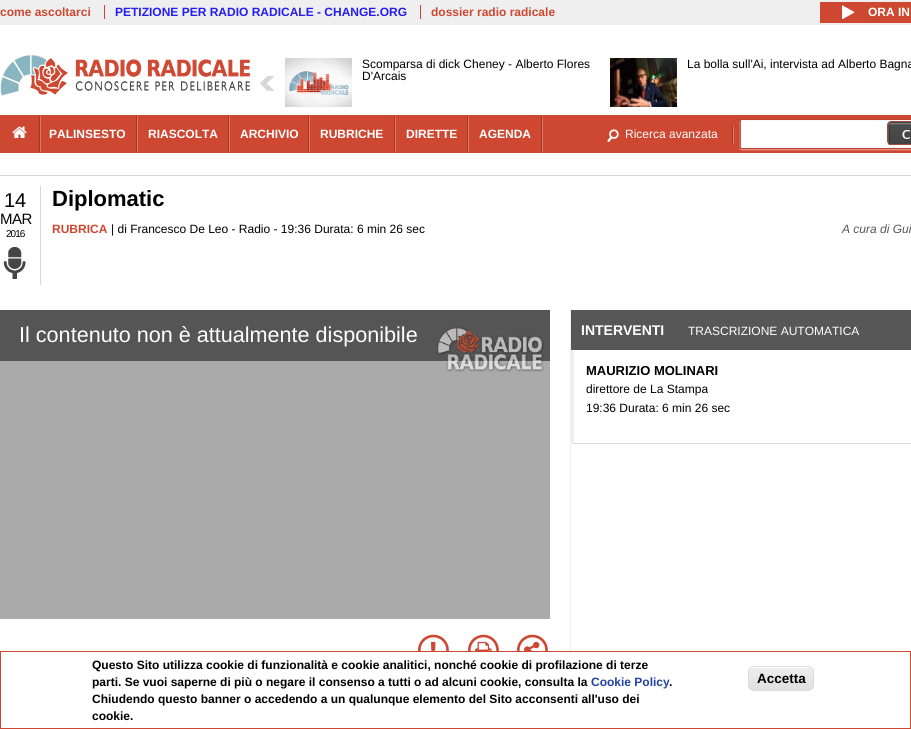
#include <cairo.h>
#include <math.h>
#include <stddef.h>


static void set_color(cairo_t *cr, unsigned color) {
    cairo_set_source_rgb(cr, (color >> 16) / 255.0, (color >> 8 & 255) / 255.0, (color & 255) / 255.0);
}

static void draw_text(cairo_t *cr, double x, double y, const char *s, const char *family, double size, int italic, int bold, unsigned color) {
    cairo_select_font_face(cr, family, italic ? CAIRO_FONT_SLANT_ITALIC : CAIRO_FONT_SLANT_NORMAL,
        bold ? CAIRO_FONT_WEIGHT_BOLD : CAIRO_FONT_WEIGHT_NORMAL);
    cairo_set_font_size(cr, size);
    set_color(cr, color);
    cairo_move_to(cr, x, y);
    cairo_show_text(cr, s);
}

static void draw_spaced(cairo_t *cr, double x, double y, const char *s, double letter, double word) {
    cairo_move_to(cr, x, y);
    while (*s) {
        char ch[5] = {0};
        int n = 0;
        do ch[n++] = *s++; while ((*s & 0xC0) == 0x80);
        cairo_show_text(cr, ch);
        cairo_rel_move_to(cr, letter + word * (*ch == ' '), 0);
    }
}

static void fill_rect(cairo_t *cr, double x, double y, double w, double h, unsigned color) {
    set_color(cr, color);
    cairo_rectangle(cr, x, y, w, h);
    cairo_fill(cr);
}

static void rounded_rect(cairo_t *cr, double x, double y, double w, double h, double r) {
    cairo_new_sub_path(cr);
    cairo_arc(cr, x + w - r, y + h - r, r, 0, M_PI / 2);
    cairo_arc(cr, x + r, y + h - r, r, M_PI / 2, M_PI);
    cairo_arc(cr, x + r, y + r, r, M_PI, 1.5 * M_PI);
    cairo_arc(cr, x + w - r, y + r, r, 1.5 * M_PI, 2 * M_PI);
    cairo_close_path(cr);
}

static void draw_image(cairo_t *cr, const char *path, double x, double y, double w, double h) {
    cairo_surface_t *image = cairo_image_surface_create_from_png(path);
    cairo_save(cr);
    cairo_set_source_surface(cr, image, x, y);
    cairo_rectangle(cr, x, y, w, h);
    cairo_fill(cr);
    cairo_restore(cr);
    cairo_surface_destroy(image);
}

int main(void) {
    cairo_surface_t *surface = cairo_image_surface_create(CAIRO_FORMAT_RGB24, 911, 729);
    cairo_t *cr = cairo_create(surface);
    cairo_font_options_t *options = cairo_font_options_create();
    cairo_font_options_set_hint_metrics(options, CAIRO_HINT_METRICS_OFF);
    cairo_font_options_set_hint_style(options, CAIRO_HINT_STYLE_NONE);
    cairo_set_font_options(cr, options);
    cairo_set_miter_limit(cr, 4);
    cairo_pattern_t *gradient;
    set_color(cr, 0xFFFFFF);
    cairo_paint(cr);
    fill_rect(cr, 0, 0, 911, 25, 0xEFEFEF);
    draw_text(cr, 0, 16, "come ascoltarci", "Liberation Sans", 12, 0, 1, 0xCD4731);
    draw_text(cr, 115, 16, "PETIZIONE PER RADIO RADICALE - CHANGE.ORG", "Liberation Sans", 12, 0, 1, 0x251EF1);
    fill_rect(cr, 104, 5, 1, 14, 0xCD4731);
    draw_text(cr, 431, 16, "dossier radio radicale", "Liberation Sans", 12, 0, 1, 0xCD4731);
    fill_rect(cr, 420, 5, 1, 14, 0xCD4731);
    set_color(cr, 0xAAAAAA);
    cairo_new_path(cr);
    cairo_arc(cr, 0.5, 10.5, 0.5, 0, 2 * M_PI);
    cairo_fill(cr);
    fill_rect(cr, 820, 2, 91, 21, 0xCD4731);
    draw_image(cr, "assets/img1.png", 842, 5, 13, 15);
    draw_text(cr, 868, 16, "ORA IN", "Liberation Sans", 12, 0, 1, 0xFFFFFF);
    fill_rect(cr, 0, 175, 911, 1, 0xD7D7D7);
    draw_image(cr, "assets/img2.png", 0, 55, 250, 41);
    draw_image(cr, "assets/img3.png", 285, 58, 67, 49);
    draw_text(cr, 362, 68, "Scomparsa di dick Cheney - Alberto Flores", "Liberation Sans", 12, 0, 0, 0x000000);
    draw_text(cr, 362, 80, "D'Arcais", "Liberation Sans", 12, 0, 0, 0x000000);
    draw_image(cr, "assets/img4.png", 610, 58, 67, 49);
    draw_text(cr, 687, 68, "La bolla sull'Ai, intervista ad Alberto Bagna", "Liberation Sans", 12, 0, 0, 0x000000);
    draw_image(cr, "assets/img5.png", 260, 76, 14, 15);
    fill_rect(cr, 0, 115, 911, 38, 0xCD4731);
    draw_image(cr, "assets/img6.png", 12, 126, 15, 12);
    draw_image(cr, "assets/img7.png", 39, 116, 2, 36);
    draw_image(cr, "assets/img7.png", 136, 116, 2, 36);
    draw_text(cr, 49, 138, "PALINSESTO", "Liberation Sans", 12, 0, 1, 0xFFFFFF);
    draw_image(cr, "assets/img7.png", 228, 116, 2, 36);
    draw_text(cr, 148, 138, "RIASCOLTA", "Liberation Sans", 12, 0, 1, 0xFFFFFF);
    draw_image(cr, "assets/img7.png", 308, 116, 2, 36);
    draw_text(cr, 240, 138, "ARCHIVIO", "Liberation Sans", 12, 0, 1, 0xFFFFFF);
    draw_image(cr, "assets/img7.png", 394, 116, 2, 36);
    draw_text(cr, 320, 138, "RUBRICHE", "Liberation Sans", 12, 0, 1, 0xFFFFFF);
    draw_image(cr, "assets/img7.png", 467, 116, 2, 36);
    draw_text(cr, 406, 138, "DIRETTE", "Liberation Sans", 12, 0, 1, 0xFFFFFF);
    draw_image(cr, "assets/img7.png", 541, 116, 2, 36);
    draw_text(cr, 479, 138, "AGENDA", "Liberation Sans", 12, 0, 1, 0xFFFFFF);
    draw_image(cr, "assets/img8.png", 607, 126, 127, 18);
    draw_text(cr, 625, 138, "Ricerca avanzata", "Liberation Sans", 12, 0, 0, 0xFFFFFF);
    draw_image(cr, "assets/img9.png", 739, 119, 172, 32);
    draw_image(cr, "assets/img10.png", 888, 122, 23, 23);
    rounded_rect(cr, 887.5, 121.5, 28, 23, 3.5);
    set_color(cr, 0xA14942);
    cairo_set_line_width(cr, 1);
    cairo_stroke(cr);
    draw_text(cr, 4, 207, "14", "Liberation Sans", 20, 0, 0, 0x000000);
    cairo_set_font_size(cr, 15);
    draw_spaced(cr, 0, 224, "MAR", -0.5, 0);
    cairo_set_font_size(cr, 10);
    draw_spaced(cr, 6, 237, "2016", -1, 0);
    draw_image(cr, "assets/img11.png", 3, 247, 23, 32);
    fill_rect(cr, 40, 186, 1, 99, 0xD7D7D7);
    draw_text(cr, 52, 206, "Diplomatic", "Liberation Sans", 22, 0, 1, 0x000000);
    draw_text(cr, 52, 233, "RUBRICA", "Liberation Sans", 12, 0, 1, 0xCD4731);
    draw_text(cr, 111, 233, "| di Francesco De Leo - Radio - 19:36 Durata: 6 min 26 sec", "Liberation Sans", 12, 0, 0, 0x000000);
    draw_text(cr, 842, 233, "A cura di Gui", "Liberation Sans", 12, 1, 0, 0x575757);
    fill_rect(cr, 0, 361, 550, 258, 0xAAAAAA);
    fill_rect(cr, 0, 310, 550, 51, 0x555555);
    draw_text(cr, 19, 342, "Il contenuto non è attualmente disponibile", "Liberation Sans", 21.6, 0, 0, 0xFFFFFF);
    draw_image(cr, "assets/img12.png", 437, 327, 107, 45);
    draw_image(cr, "assets/img13.png", 418, 634, 31, 17);
    draw_image(cr, "assets/img14.png", 431, 641, 5, 10);
    draw_image(cr, "assets/img13.png", 468, 634, 31, 17);
    draw_image(cr, "assets/img15.png", 475, 641, 17, 10);
    draw_image(cr, "assets/img13.png", 517, 634, 31, 17);
    draw_image(cr, "assets/img16.png", 524, 641, 16, 10);
    fill_rect(cr, 570, 310, 1, 341, 0xEFEFEF);
    fill_rect(cr, 571, 310, 340, 40, 0x575757);
    draw_text(cr, 581, 335, "INTERVENTI", "Liberation Sans", 14, 0, 1, 0xFFFFFF);
    draw_text(cr, 688, 335, "TRASCRIZIONE AUTOMATICA", "Liberation Sans", 12, 0, 0, 0xFFFFFF);
    set_color(cr, 0xD7D7D7);
    cairo_new_path(cr);
    cairo_move_to(cr, 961, 444);
    cairo_line_to(cr, 571, 444);
    cairo_line_to(cr, 574, 443);
    cairo_line_to(cr, 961, 443);
    cairo_close_path(cr);
    cairo_fill(cr);
    set_color(cr, 0xEFEFEF);
    cairo_new_path(cr);
    cairo_move_to(cr, 571, 444);
    cairo_line_to(cr, 571, 350);
    cairo_line_to(cr, 574, 351);
    cairo_line_to(cr, 574, 443);
    cairo_close_path(cr);
    cairo_fill(cr);
    draw_text(cr, 586, 375, "MAURIZIO MOLINARI", "Liberation Sans", 13, 0, 1, 0x000000);
    draw_text(cr, 586, 393, "direttore de La Stampa", "Liberation Sans", 12, 0, 0, 0x000000);
    draw_text(cr, 586, 412, "19:36 Durata: 6 min 26 sec", "Liberation Sans", 12, 0, 0, 0x000000);
    cairo_rectangle(cr, 0.5, 651.5, 910, 77);
    set_color(cr, 0xCD4731);
    cairo_stroke(cr);
    draw_text(cr, 92, 669, "Questo Sito utilizza cookie di funzionalità e cookie analitici, nonché cookie di profilazione di terze", "Liberation Sans", 12, 0, 1, 0x000000);
    draw_text(cr, 92, 686, "parti. Se vuoi saperne di più o negare il consenso a tutti o ad alcuni cookie, consulta la", "Liberation Sans", 12, 0, 1, 0x000000);
    draw_text(cr, 591, 686, "Cookie Policy", "Liberation Sans", 12, 0, 1, 0x2442A2);
    draw_text(cr, 669, 686, ".", "Liberation Sans", 12, 0, 1, 0x000000);
    draw_text(cr, 92, 703, "Chiudendo questo banner o accedendo a un qualunque elemento del Sito acconsenti all'uso dei", "Liberation Sans", 12, 0, 1, 0x000000);
    draw_text(cr, 92, 720, "cookie.", "Liberation Sans", 12, 0, 1, 0x000000);
    cairo_save(cr);
    rounded_rect(cr, 748, 666, 66, 25, 6);
    cairo_clip(cr);
    gradient = cairo_pattern_create_linear(781, 667, 781, 690);
    cairo_pattern_add_color_stop_rgba(gradient, 0.05, 0.929, 0.929, 0.929, 1);
    cairo_pattern_add_color_stop_rgba(gradient, 1, 0.875, 0.875, 0.875, 1);
    cairo_set_source(cr, gradient);
    cairo_pattern_destroy(gradient);
    cairo_rectangle(cr, 748, 667, 66, 23);
    cairo_fill(cr);
    cairo_restore(cr);
    set_color(cr, 0xFFFFFF);
    cairo_new_path(cr);
    cairo_move_to(cr, 754, 668);
    cairo_line_to(cr, 808, 668);
    cairo_curve_to(cr, 811, 668, 813, 670, 813, 673);
    cairo_curve_to(cr, 813, 665, 805, 667, 799, 667);
    cairo_line_to(cr, 763, 667);
    cairo_curve_to(cr, 757, 667, 749, 665, 749, 673);
    cairo_curve_to(cr, 749, 670, 751, 668, 754, 668);
    cairo_close_path(cr);
    cairo_fill(cr);
    rounded_rect(cr, 748.5, 666.5, 65, 24, 5.5);
    set_color(cr, 0xDCDCDC);
    cairo_stroke(cr);
    draw_text(cr, 757, 683, "Accetta", "Liberation Sans", 13.5, 0, 1, 0x000000);
    cairo_surface_write_to_png(surface, "output.png");
    cairo_font_options_destroy(options);
    cairo_destroy(cr);
    cairo_surface_destroy(surface);
    return 0;
}
